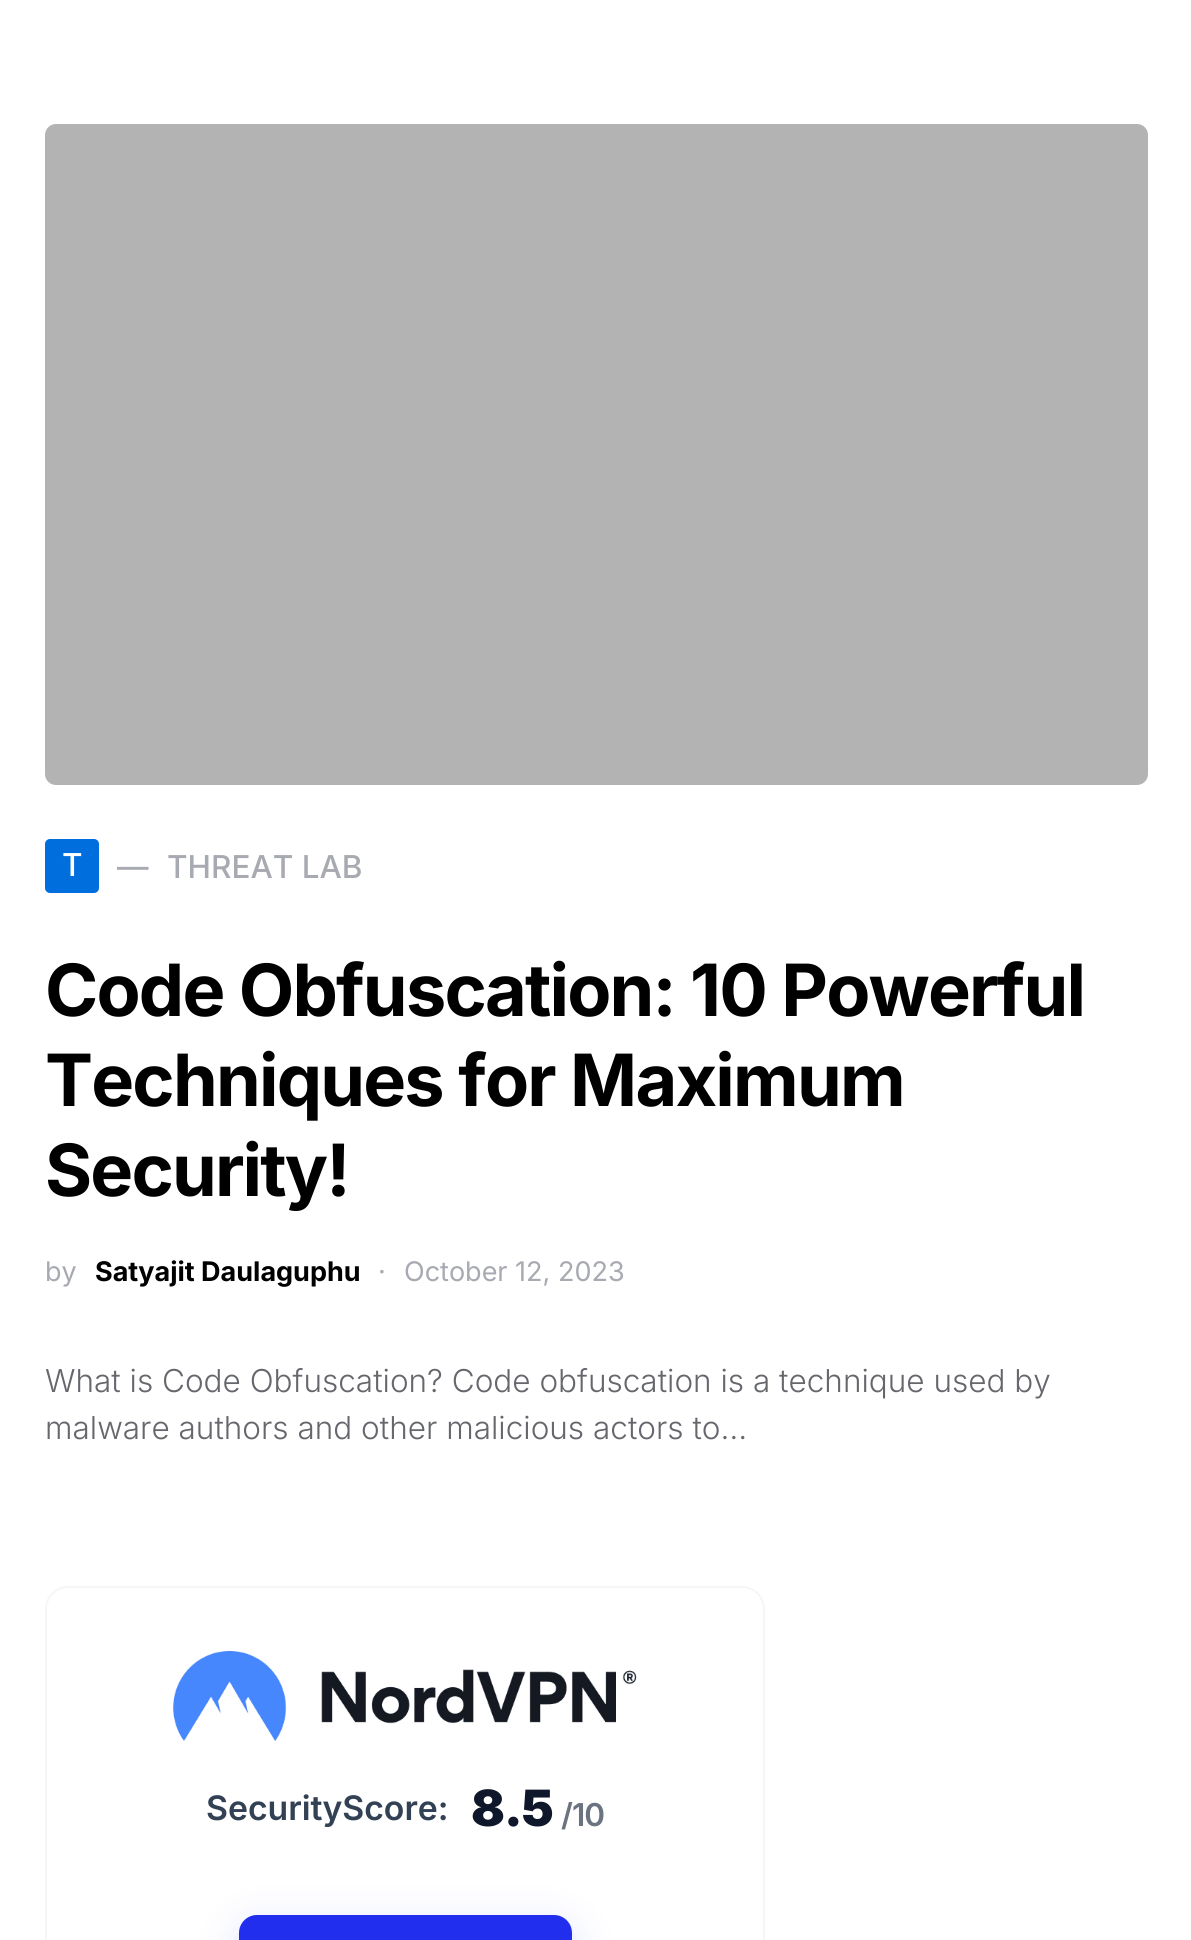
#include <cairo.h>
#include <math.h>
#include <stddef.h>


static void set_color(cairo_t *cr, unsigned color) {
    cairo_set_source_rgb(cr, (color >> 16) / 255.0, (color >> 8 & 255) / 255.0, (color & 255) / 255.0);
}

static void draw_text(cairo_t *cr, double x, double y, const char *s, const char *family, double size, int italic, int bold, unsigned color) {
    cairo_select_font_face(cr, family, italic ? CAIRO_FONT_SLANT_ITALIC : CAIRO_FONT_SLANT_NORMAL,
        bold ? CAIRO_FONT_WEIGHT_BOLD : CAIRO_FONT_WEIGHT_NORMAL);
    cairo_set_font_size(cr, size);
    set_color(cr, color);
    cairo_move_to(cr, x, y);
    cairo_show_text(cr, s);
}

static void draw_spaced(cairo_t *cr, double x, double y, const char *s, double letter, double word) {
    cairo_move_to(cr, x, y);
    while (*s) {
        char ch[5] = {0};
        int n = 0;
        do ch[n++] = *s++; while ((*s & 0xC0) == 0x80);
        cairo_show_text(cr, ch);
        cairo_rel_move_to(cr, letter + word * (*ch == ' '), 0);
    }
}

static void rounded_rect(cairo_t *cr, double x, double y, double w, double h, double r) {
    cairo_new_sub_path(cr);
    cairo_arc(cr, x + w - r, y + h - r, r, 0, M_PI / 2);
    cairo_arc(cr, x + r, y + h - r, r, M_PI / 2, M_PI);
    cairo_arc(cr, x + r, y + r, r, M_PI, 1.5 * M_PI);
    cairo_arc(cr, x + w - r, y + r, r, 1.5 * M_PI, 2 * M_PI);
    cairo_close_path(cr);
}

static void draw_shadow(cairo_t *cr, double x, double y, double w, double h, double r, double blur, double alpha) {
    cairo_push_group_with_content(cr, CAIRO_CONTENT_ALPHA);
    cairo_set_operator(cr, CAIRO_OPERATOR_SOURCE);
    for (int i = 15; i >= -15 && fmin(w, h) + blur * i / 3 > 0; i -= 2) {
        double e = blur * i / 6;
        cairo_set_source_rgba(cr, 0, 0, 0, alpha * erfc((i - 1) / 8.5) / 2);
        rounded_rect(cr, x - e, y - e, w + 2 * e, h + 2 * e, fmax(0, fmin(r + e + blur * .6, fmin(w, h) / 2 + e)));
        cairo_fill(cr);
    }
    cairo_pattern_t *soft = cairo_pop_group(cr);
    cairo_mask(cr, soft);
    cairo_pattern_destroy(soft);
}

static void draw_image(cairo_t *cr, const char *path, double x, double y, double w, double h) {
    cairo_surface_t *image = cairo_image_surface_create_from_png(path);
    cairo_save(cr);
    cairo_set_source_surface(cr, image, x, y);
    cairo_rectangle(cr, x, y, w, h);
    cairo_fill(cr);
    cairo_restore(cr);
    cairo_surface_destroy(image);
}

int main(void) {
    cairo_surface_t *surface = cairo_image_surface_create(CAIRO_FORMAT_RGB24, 1191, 1940);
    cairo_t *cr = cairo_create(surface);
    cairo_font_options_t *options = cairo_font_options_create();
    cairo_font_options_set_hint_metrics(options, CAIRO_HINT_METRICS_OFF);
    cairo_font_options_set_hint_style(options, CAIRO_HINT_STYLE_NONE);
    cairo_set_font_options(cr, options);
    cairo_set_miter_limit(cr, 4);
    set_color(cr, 0xFFFFFF);
    cairo_paint(cr);
    set_color(cr, 0xB3B3B3);
    rounded_rect(cr, 45, 124, 1103, 661, 11);
    cairo_fill(cr);
    set_color(cr, 0x006EDC);
    rounded_rect(cr, 45, 839, 54, 54, 5);
    cairo_fill(cr);
    draw_text(cr, 62, 876, "T", "Inter Medium", 31.5, 0, 0, 0xFFFFFF);
    draw_text(cr, 117, 878, "—", "Inter Medium", 31.5, 0, 0, 0xA8AAB2);
    draw_text(cr, 167, 878, "THREAT LAB", "Inter Medium", 31.5, 0, 0, 0xA8AAB2);
    cairo_select_font_face(cr, "Inter", CAIRO_FONT_SLANT_NORMAL, CAIRO_FONT_WEIGHT_BOLD);
    cairo_set_font_size(cr, 72);
    set_color(cr, 0x000000);
    draw_spaced(cr, 45, 1016, "Code Obfuscation: 10 Powerful", -1.8, 0);
    draw_spaced(cr, 45, 1106, "Techniques for Maximum", -1.8, 0);
    draw_spaced(cr, 45, 1196, "Security!", -1.8, 0);
    draw_text(cr, 45, 1281, "by", "Inter", 27, 0, 0, 0xA8AAB2);
    draw_text(cr, 95, 1281, "Satyajit Daulaguphu", "Inter", 27, 0, 1, 0x000000);
    draw_text(cr, 378, 1281, "·", "Inter", 27, 0, 0, 0xA8AAB2);
    draw_text(cr, 404, 1281, "October 12, 2023", "Inter", 27, 0, 0, 0xA8AAB2);
    draw_text(cr, 45, 1392, "What is Code Obfuscation? Code obfuscation is a technique used by", "Inter Light", 31.5, 0, 0, 0x66676D);
    draw_text(cr, 45, 1439, "malware authors and other malicious actors to…", "Inter Light", 31.5, 0, 0, 0x66676D);
    rounded_rect(cr, 46, 1587, 718, 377, 22);
    set_color(cr, 0xF5F6F6);
    cairo_stroke(cr);
    draw_image(cr, "assets/img1.png", 173, 1651, 464, 90);
    draw_text(cr, 206, 1820, "SecurityScore:", "Inter SemiBold", 33.75, 0, 0, 0x334155);
    cairo_select_font_face(cr, "Inter Black", CAIRO_FONT_SLANT_NORMAL, CAIRO_FONT_WEIGHT_NORMAL);
    cairo_set_font_size(cr, 50);
    set_color(cr, 0x0F172A);
    draw_spaced(cr, 471, 1826, "8.5", -1, 0);
    cairo_select_font_face(cr, "Inter SemiBold", CAIRO_FONT_SLANT_NORMAL, CAIRO_FONT_WEIGHT_NORMAL);
    cairo_set_font_size(cr, 31.5);
    set_color(cr, 0x6B7280);
    draw_spaced(cr, 561, 1826, "/10", -1, 0);
    set_color(cr, 0x2F3BF7);
    draw_shadow(cr, 239, 1928, 333, 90, 18, 20, 0.18);
    set_color(cr, 0x222EED);
    rounded_rect(cr, 239, 1915, 333, 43, 18);
    cairo_fill(cr);
    cairo_surface_write_to_png(surface, "output.png");
    cairo_font_options_destroy(options);
    cairo_destroy(cr);
    cairo_surface_destroy(surface);
    return 0;
}
